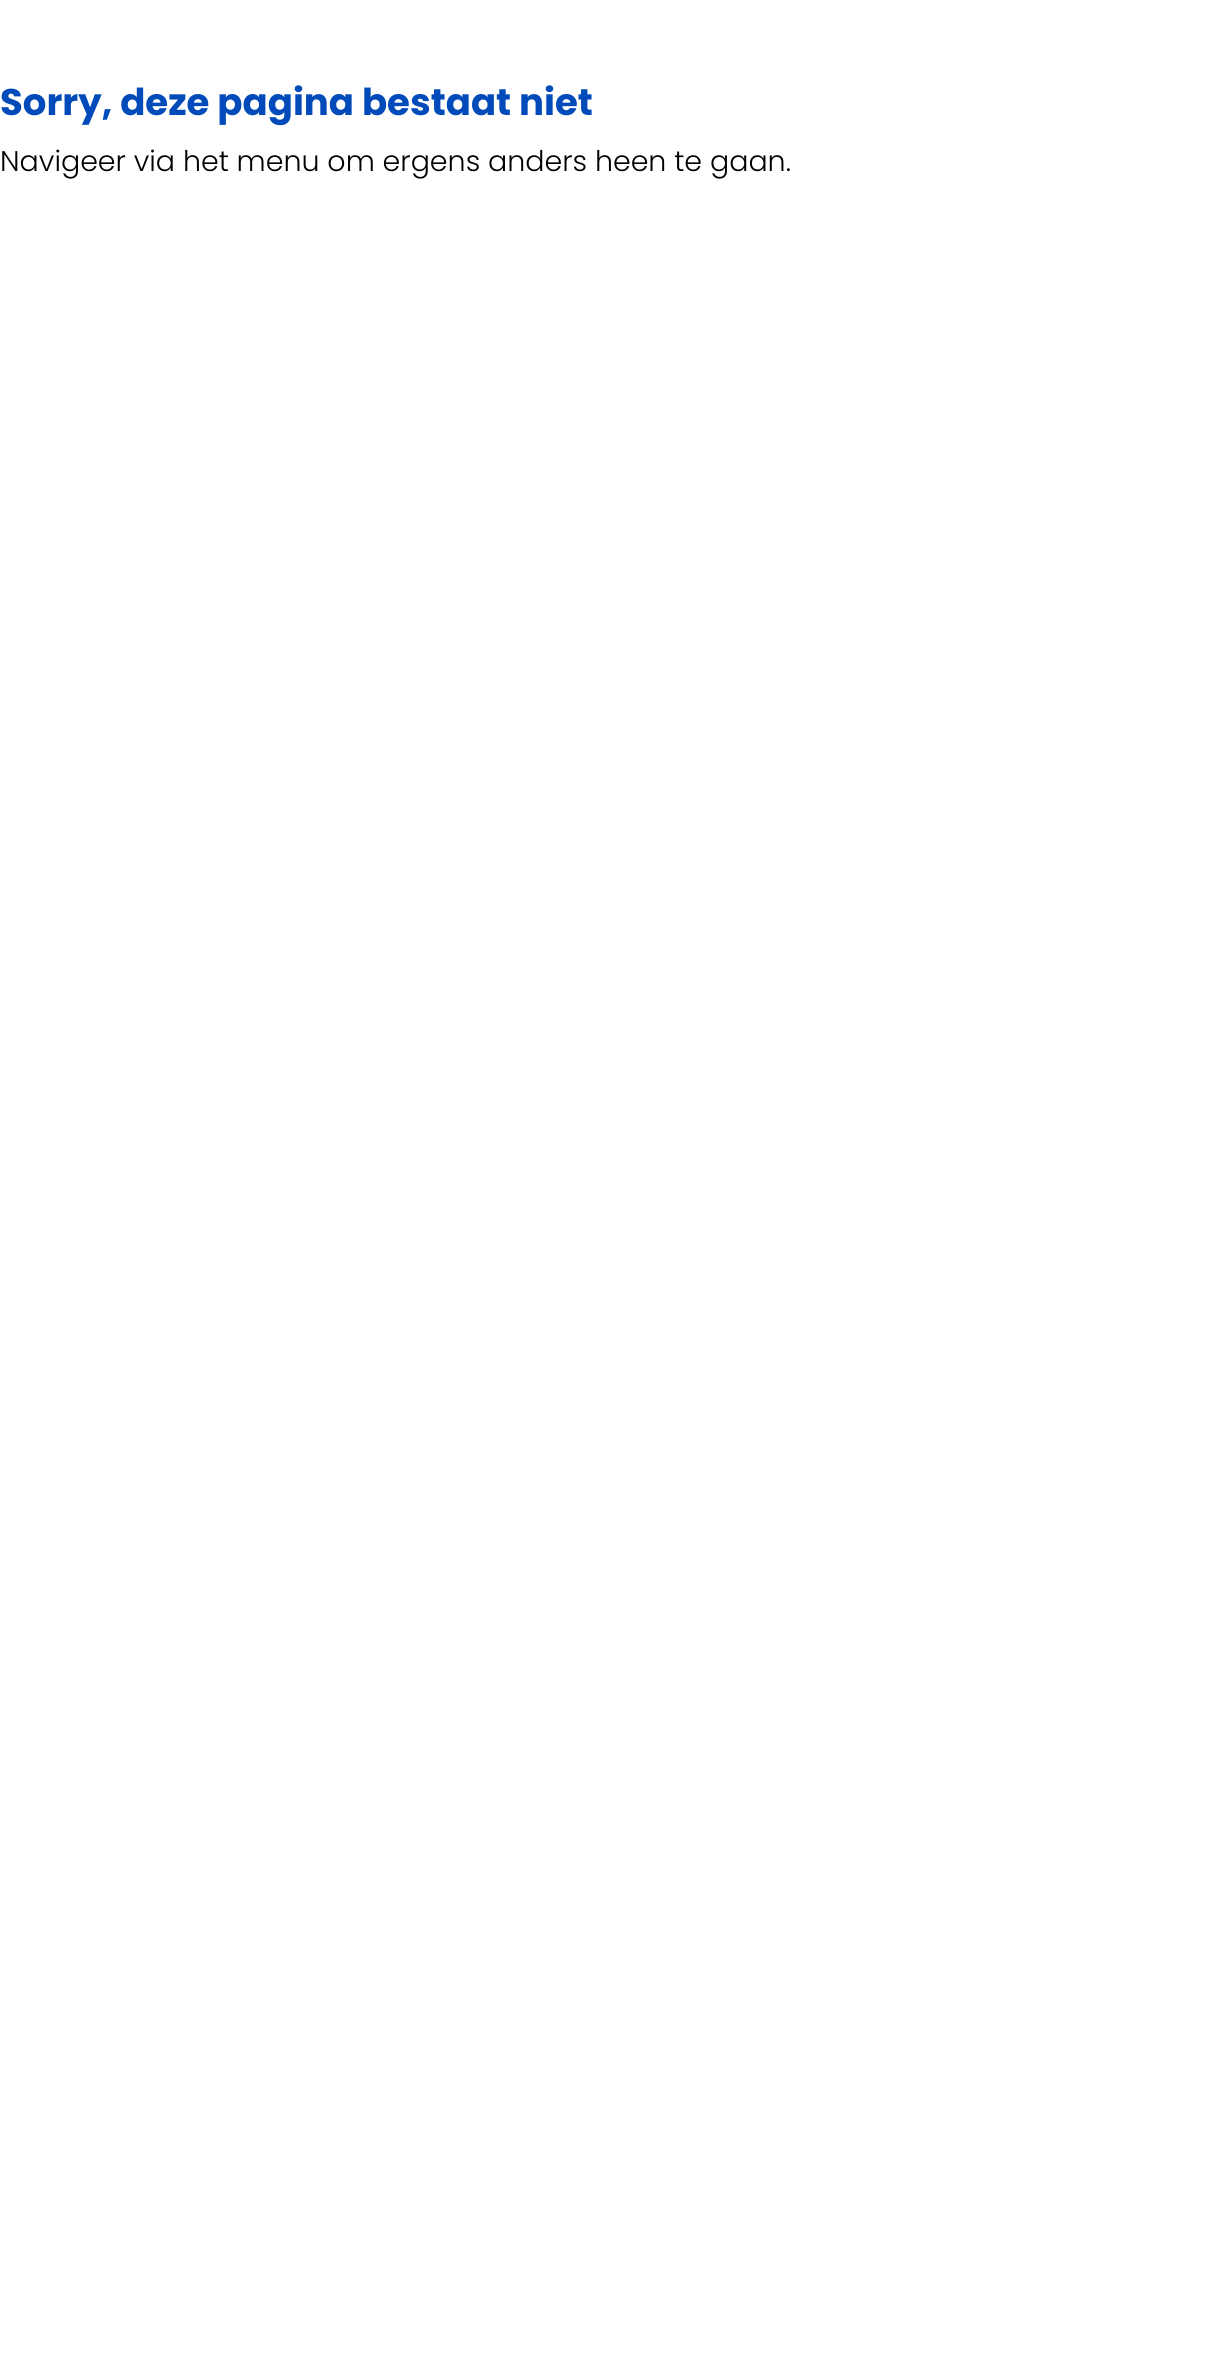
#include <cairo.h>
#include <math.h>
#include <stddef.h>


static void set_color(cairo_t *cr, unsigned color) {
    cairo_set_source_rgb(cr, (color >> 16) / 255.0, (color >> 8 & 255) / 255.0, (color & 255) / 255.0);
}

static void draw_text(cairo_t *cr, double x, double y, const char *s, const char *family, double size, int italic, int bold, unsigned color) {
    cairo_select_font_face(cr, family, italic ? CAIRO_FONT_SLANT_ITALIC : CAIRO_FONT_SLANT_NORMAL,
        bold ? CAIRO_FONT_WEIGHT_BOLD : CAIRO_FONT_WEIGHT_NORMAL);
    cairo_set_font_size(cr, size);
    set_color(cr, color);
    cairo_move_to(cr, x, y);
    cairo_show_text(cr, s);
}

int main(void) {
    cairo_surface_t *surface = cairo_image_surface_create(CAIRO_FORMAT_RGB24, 1217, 2369);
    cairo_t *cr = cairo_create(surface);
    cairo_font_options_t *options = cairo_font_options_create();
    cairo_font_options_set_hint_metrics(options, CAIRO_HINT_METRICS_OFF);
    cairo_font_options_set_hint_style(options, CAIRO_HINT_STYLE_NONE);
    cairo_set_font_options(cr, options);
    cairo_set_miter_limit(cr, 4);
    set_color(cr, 0xFFFFFF);
    cairo_paint(cr);
    draw_text(cr, 0, 115, "Sorry, deze pagina bestaat niet", "Poppins", 37.1, 0, 1, 0x014AB9);
    draw_text(cr, 0, 171, "Navigeer via het menu om ergens anders heen te gaan.", "Poppins Light", 28.5, 0, 0, 0x000000);
    cairo_surface_write_to_png(surface, "output.png");
    cairo_font_options_destroy(options);
    cairo_destroy(cr);
    cairo_surface_destroy(surface);
    return 0;
}
